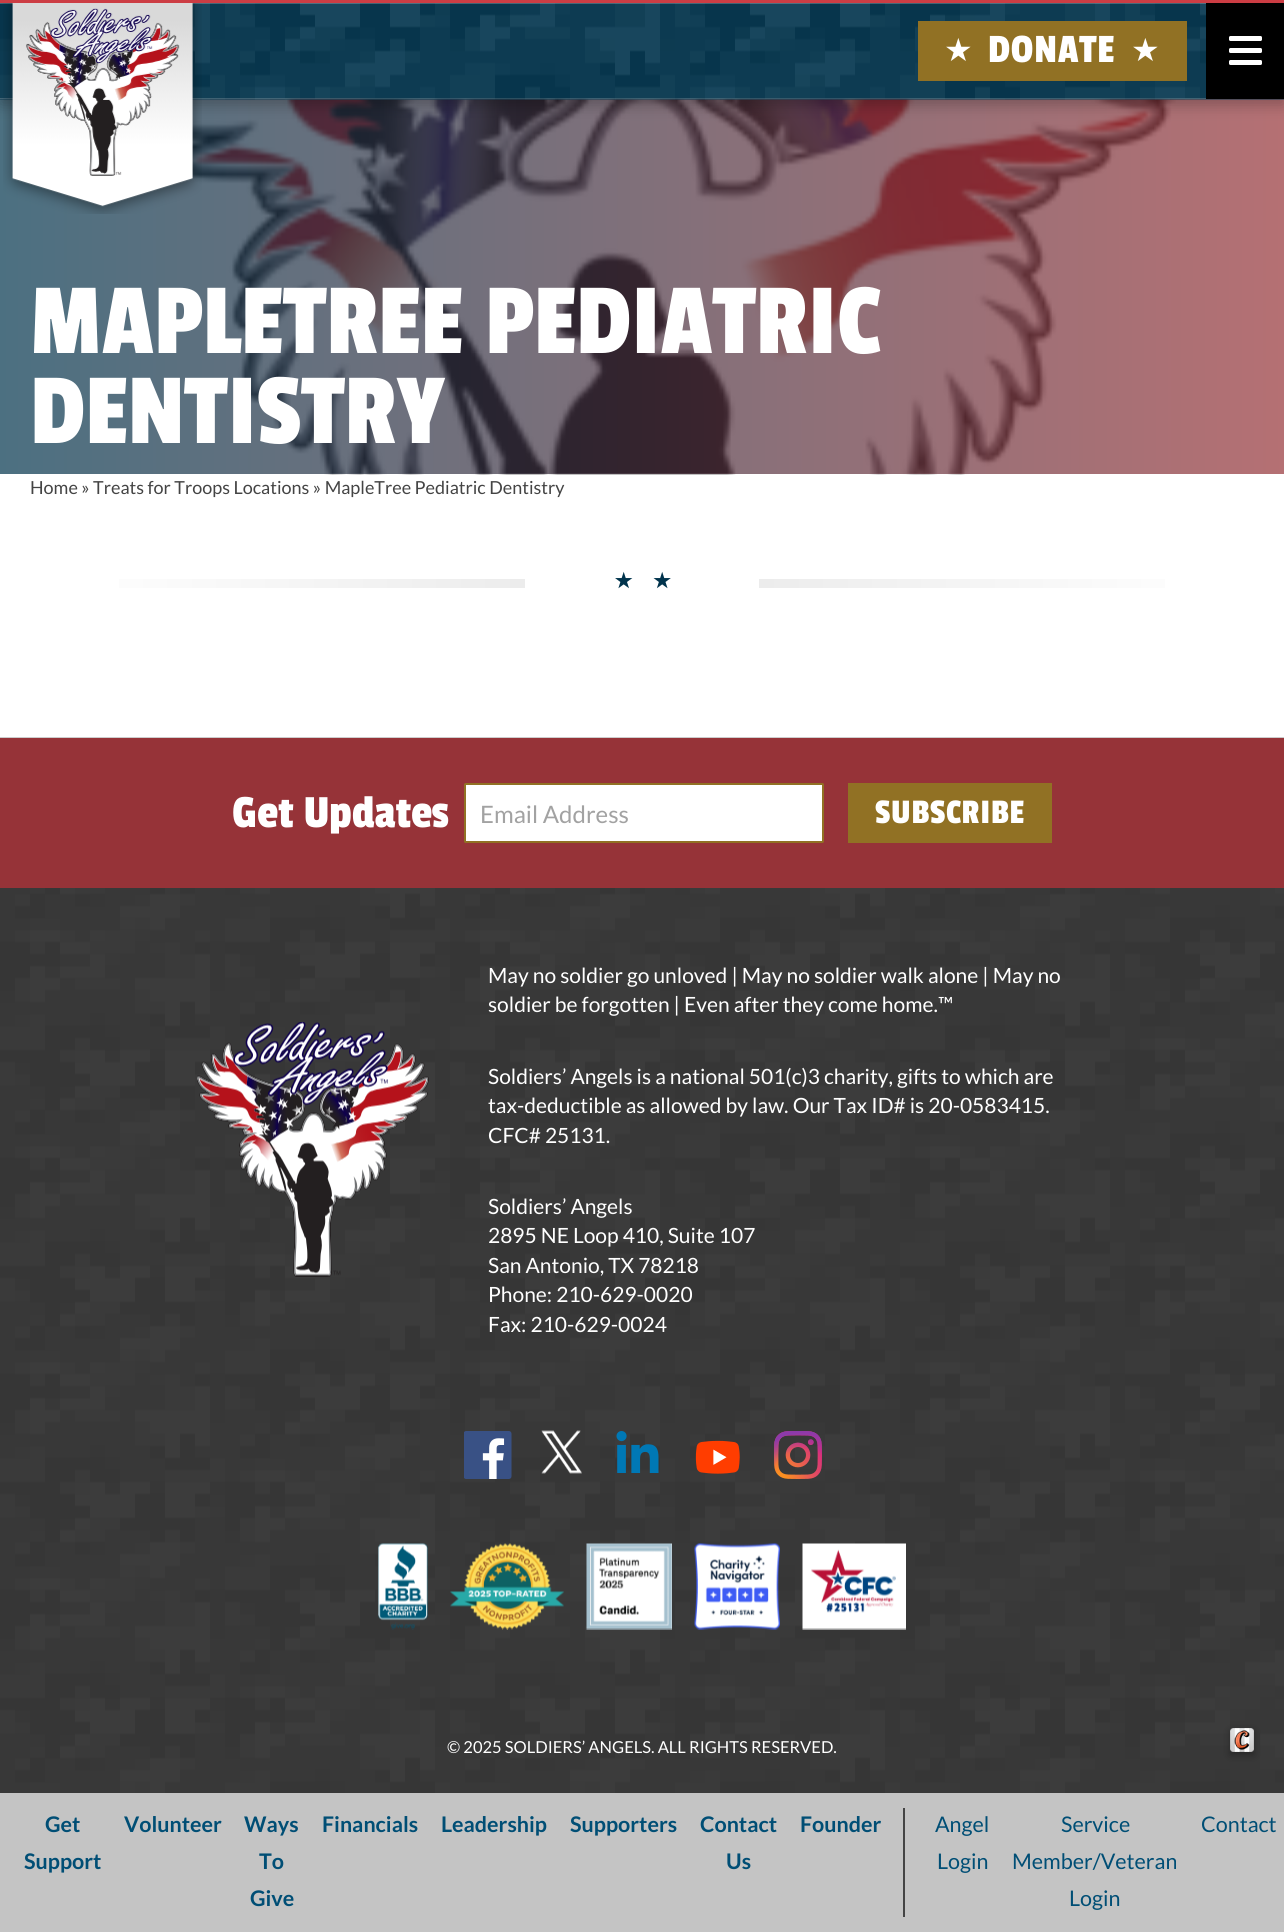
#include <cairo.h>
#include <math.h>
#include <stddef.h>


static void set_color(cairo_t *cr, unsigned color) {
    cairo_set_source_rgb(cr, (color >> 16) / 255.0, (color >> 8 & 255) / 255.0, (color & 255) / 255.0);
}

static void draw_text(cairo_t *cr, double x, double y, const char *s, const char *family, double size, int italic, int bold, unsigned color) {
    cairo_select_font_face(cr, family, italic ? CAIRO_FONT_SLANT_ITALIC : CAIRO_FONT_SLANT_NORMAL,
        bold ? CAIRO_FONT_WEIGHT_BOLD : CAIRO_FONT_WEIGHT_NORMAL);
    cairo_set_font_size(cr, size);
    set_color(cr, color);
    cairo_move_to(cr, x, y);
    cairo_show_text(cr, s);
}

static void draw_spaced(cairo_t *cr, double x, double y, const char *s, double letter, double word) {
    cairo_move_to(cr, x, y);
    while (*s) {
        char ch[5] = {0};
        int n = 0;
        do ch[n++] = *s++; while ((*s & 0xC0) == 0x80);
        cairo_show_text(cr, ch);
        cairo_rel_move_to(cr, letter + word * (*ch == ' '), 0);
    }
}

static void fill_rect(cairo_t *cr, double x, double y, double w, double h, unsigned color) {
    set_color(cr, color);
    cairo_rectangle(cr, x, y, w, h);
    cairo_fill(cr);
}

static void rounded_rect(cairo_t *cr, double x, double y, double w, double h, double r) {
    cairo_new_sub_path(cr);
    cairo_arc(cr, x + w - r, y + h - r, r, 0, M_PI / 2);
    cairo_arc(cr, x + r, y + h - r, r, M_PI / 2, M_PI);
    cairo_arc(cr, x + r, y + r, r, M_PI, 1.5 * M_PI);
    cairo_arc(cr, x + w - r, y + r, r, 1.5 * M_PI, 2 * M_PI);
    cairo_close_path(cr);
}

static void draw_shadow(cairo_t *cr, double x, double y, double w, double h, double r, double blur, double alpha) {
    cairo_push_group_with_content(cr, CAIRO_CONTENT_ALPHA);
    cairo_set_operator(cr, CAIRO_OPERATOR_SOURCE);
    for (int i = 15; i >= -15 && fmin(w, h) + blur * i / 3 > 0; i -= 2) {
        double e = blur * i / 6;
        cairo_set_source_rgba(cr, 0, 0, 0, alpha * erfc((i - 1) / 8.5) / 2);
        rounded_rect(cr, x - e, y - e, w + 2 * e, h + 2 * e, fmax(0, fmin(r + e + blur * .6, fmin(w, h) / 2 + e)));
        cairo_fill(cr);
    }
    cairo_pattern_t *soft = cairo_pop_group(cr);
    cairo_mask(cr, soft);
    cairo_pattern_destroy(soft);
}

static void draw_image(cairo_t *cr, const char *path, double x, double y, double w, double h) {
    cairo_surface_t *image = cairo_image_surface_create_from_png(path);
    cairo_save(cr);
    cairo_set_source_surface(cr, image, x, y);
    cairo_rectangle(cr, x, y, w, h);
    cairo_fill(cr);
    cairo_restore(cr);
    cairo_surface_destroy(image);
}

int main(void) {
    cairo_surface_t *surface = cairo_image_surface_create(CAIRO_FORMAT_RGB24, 1284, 1932);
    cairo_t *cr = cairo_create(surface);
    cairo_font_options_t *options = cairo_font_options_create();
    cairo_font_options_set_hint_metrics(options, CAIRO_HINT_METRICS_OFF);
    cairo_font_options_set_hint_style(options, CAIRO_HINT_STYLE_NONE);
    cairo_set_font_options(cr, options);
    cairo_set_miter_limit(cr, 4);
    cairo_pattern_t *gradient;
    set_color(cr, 0xFFFFFF);
    cairo_paint(cr);
    draw_image(cr, "assets/img4.png", 189, 98, 987, 377);
    gradient = cairo_pattern_create_linear(1284, 286, 0, 287);
    cairo_pattern_add_color_stop_rgba(gradient, 0, 0.588, 0.2, 0.22, 0.7);
    cairo_pattern_add_color_stop_rgba(gradient, 1, 0, 0.2, 0.298, 0.7);
    cairo_set_source(cr, gradient);
    cairo_pattern_destroy(gradient);
    cairo_rectangle(cr, 0, 99, 1284, 375);
    cairo_fill(cr);
    set_color(cr, 0x000000);
    draw_shadow(cr, 0, 9, 1284, 96, 0, 7.5, 0.25);
    fill_rect(cr, 0, 0, 1284, 3, 0xCC3D44);
    draw_image(cr, "assets/img1.png", 0, 3, 1284, 97);
    draw_image(cr, "assets/img2.png", 3, 3, 199, 211);
    draw_image(cr, "assets/img3.png", 26, 8, 154, 168);
    fill_rect(cr, 918, 21, 269, 60, 0x917124);
    cairo_select_font_face(cr, "DejaVu Sans", CAIRO_FONT_SLANT_NORMAL, CAIRO_FONT_WEIGHT_NORMAL);
    cairo_set_font_size(cr, 32);
    set_color(cr, 0xFFFFFF);
    draw_spaced(cr, 944, 61, "★", 0.75, 0);
    cairo_select_font_face(cr, "Passion One", CAIRO_FONT_SLANT_NORMAL, CAIRO_FONT_WEIGHT_NORMAL);
    cairo_set_font_size(cr, 42);
    draw_spaced(cr, 988, 62, "DONATE", 0.75, 0);
    cairo_select_font_face(cr, "DejaVu Sans", CAIRO_FONT_SLANT_NORMAL, CAIRO_FONT_WEIGHT_NORMAL);
    cairo_set_font_size(cr, 32);
    draw_spaced(cr, 1131, 61, "★", 0.75, 0);
    fill_rect(cr, 1206, 3, 78, 96, 0x000000);
    set_color(cr, 0xFFFFFF);
    rounded_rect(cr, 1229, 36, 33, 5, 1.5);
    cairo_fill(cr);
    rounded_rect(cr, 1229, 48, 33, 5, 1.5);
    cairo_fill(cr);
    rounded_rect(cr, 1229, 60, 33, 5, 1.5);
    cairo_fill(cr);
    draw_text(cr, 30, 353, "MAPLETREE PEDIATRIC", "Passion One", 105, 0, 0, 0xFFFFFF);
    draw_text(cr, 30, 443, "DENTISTRY", "Passion One", 105, 0, 0, 0xFFFFFF);
    draw_text(cr, 30, 494, "Home » Treats for Troops Locations » MapleTree Pediatric Dentistry", "Lato", 18, 0, 0, 0x444444);
    gradient = cairo_pattern_create_linear(57, 584, 1227, 584);
    cairo_pattern_add_color_stop_rgba(gradient, 0, 1, 1, 1, 1);
    cairo_pattern_add_color_stop_rgba(gradient, 0.4, 0.925, 0.925, 0.925, 1);
    cairo_pattern_add_color_stop_rgba(gradient, 0.4, 1, 1, 1, 1);
    cairo_set_source(cr, gradient);
    cairo_pattern_destroy(gradient);
    cairo_rectangle(cr, 119, 579, 406, 9);
    cairo_fill(cr);
    cairo_select_font_face(cr, "FreeSans", CAIRO_FONT_SLANT_NORMAL, CAIRO_FONT_WEIGHT_NORMAL);
    cairo_set_font_size(cr, 36);
    set_color(cr, 0x00334C);
    draw_spaced(cr, 614, 591, "⭑ ⭑", 6, -2);
    gradient = cairo_pattern_create_linear(1227, 583, 759, 584);
    cairo_pattern_add_color_stop_rgba(gradient, 0, 1, 1, 1, 1);
    cairo_pattern_add_color_stop_rgba(gradient, 1, 0.925, 0.925, 0.925, 1);
    cairo_set_source(cr, gradient);
    cairo_pattern_destroy(gradient);
    cairo_rectangle(cr, 759, 579, 406, 9);
    cairo_fill(cr);
    draw_image(cr, "assets/img5.png", 0, 737, 1284, 1056);
    fill_rect(cr, 0, 738, 1284, 150, 0x963338);
    draw_text(cr, 232, 827, "Get Updates", "Passion One", 48, 0, 0, 0xFFFFFF);
    rounded_rect(cr, 465, 784, 358, 58, 0.5);
    cairo_fill_preserve(cr);
    set_color(cr, 0x917124);
    cairo_stroke(cr);
    draw_text(cr, 480, 823, "Email Address", "Lato", 24, 0, 0, 0xA2A2A2);
    fill_rect(cr, 848, 783, 204, 60, 0x917124);
    cairo_select_font_face(cr, "Passion One", CAIRO_FONT_SLANT_NORMAL, CAIRO_FONT_WEIGHT_NORMAL);
    cairo_set_font_size(cr, 36);
    set_color(cr, 0xFFFFFF);
    draw_spaced(cr, 875, 823, "SUBSCRIBE", 0.75, 0);
    draw_image(cr, "assets/img6.png", 197, 1022, 232, 255);
    draw_text(cr, 488, 983, "May no soldier go unloved | May no soldier walk alone | May no", "Lato", 21, 0, 0, 0xFFFFFF);
    draw_text(cr, 488, 1012, "soldier be forgotten | Even after they come home.™", "Lato", 21, 0, 0, 0xFFFFFF);
    draw_text(cr, 488, 1084, "Soldiers’ Angels is a national 501(c)3 charity, gifts to which are", "Lato", 21, 0, 0, 0xFFFFFF);
    draw_text(cr, 488, 1113, "tax-deductible as allowed by law. Our Tax ID# is 20-0583415.", "Lato", 21, 0, 0, 0xFFFFFF);
    draw_text(cr, 488, 1143, "CFC# 25131.", "Lato", 21, 0, 0, 0xFFFFFF);
    draw_text(cr, 488, 1214, "Soldiers’ Angels", "Lato", 21, 0, 0, 0xFFFFFF);
    draw_text(cr, 488, 1243, "2895 NE Loop 410, Suite 107", "Lato", 21, 0, 0, 0xFFFFFF);
    draw_text(cr, 488, 1273, "San Antonio, TX 78218", "Lato", 21, 0, 0, 0xFFFFFF);
    draw_text(cr, 488, 1302, "Phone: 210-629-0020", "Lato", 21, 0, 0, 0xFFFFFF);
    draw_text(cr, 488, 1332, "Fax: 210-629-0024", "Lato", 21, 0, 0, 0xFFFFFF);
    draw_image(cr, "assets/img7.png", 464, 1431, 48, 48);
    draw_image(cr, "assets/img8.png", 541, 1430, 41, 44);
    draw_image(cr, "assets/img9.png", 616, 1431, 43, 42);
    draw_image(cr, "assets/img10.png", 695, 1440, 45, 34);
    draw_image(cr, "assets/img11.png", 774, 1431, 48, 48);
    draw_image(cr, "assets/img12.png", 378, 1543, 50, 87);
    draw_image(cr, "assets/img13.png", 450, 1543, 114, 87);
    draw_image(cr, "assets/img14.png", 586, 1543, 86, 87);
    draw_image(cr, "assets/img15.png", 694, 1543, 86, 87);
    draw_image(cr, "assets/img16.png", 802, 1543, 104, 87);
    set_color(cr, 0x000000);
    draw_shadow(cr, 1230, 1731, 24, 24, 0, 4, 0.3);
    draw_image(cr, "assets/img17.png", 1230, 1728, 24, 24);
    draw_text(cr, 447, 1753, "© 2025 SOLDIERS’ ANGELS. ALL RIGHTS RESERVED.", "Lato", 16.5, 0, 0, 0xFFFFFF);
    fill_rect(cr, 0, 1793, 1284, 139, 0xC4C4C4);
    fill_rect(cr, 903, 1808, 2, 109, 0x444444);
    draw_text(cr, 45, 1832, "Get", "Lato", 21.5, 0, 1, 0x004E75);
    draw_text(cr, 24, 1869, "Support", "Lato", 21.5, 0, 1, 0x004E75);
    draw_text(cr, 124, 1832, "Volunteer", "Lato", 21.5, 0, 1, 0x004E75);
    draw_text(cr, 244, 1832, "Ways", "Lato", 21.5, 0, 1, 0x004E75);
    draw_text(cr, 259, 1869, "To", "Lato", 21.5, 0, 1, 0x004E75);
    draw_text(cr, 250, 1906, "Give", "Lato", 21.5, 0, 1, 0x004E75);
    draw_text(cr, 322, 1832, "Financials", "Lato", 21.5, 0, 1, 0x004E75);
    draw_text(cr, 441, 1832, "Leadership", "Lato", 21.5, 0, 1, 0x004E75);
    draw_text(cr, 570, 1832, "Supporters", "Lato", 21.5, 0, 1, 0x004E75);
    draw_text(cr, 700, 1832, "Contact", "Lato", 21.5, 0, 1, 0x004E75);
    draw_text(cr, 726, 1869, "Us", "Lato", 21.5, 0, 1, 0x004E75);
    draw_text(cr, 800, 1832, "Founder", "Lato", 21.5, 0, 1, 0x004E75);
    draw_text(cr, 935, 1832, "Angel", "Lato", 21.5, 0, 0, 0x004E75);
    draw_text(cr, 937, 1869, "Login", "Lato", 21.5, 0, 0, 0x004E75);
    draw_text(cr, 1061, 1832, "Service", "Lato", 21.5, 0, 0, 0x004E75);
    draw_text(cr, 1012, 1869, "Member/Veteran", "Lato", 21.5, 0, 0, 0x004E75);
    draw_text(cr, 1069, 1906, "Login", "Lato", 21.5, 0, 0, 0x004E75);
    draw_text(cr, 1201, 1832, "Contact", "Lato", 21.5, 0, 0, 0x004E75);
    cairo_surface_write_to_png(surface, "output.png");
    cairo_font_options_destroy(options);
    cairo_destroy(cr);
    cairo_surface_destroy(surface);
    return 0;
}
